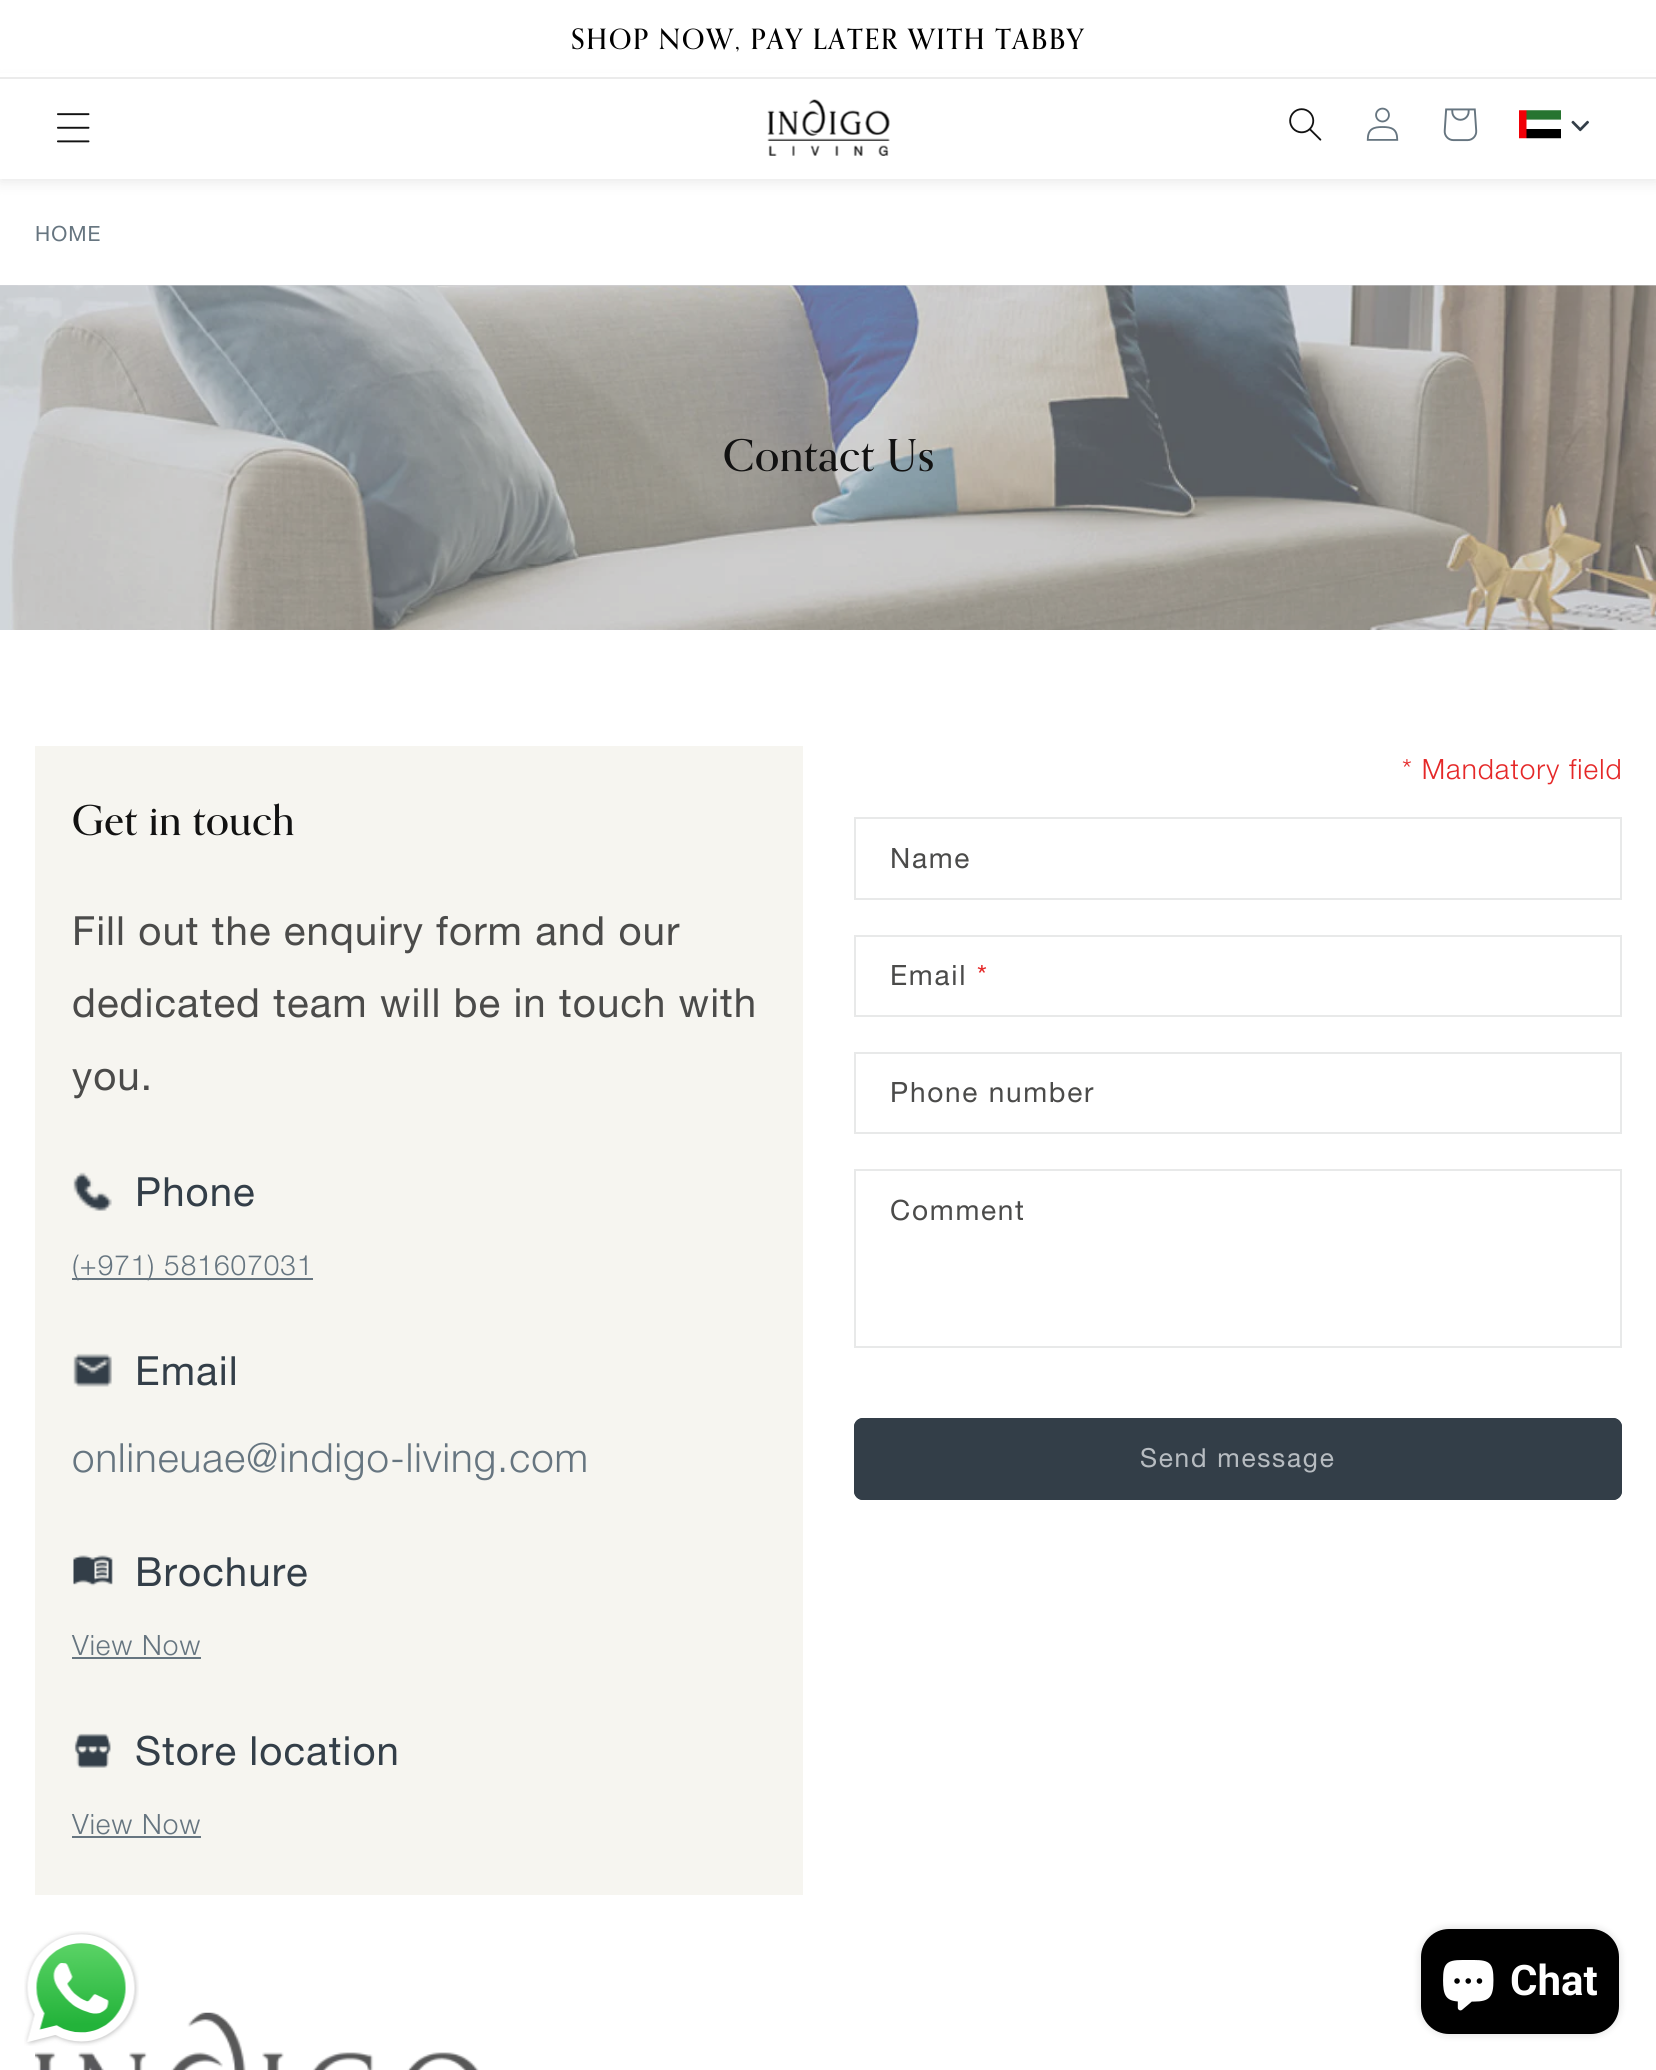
#include <cairo.h>
#include <math.h>
#include <stddef.h>


static void set_color(cairo_t *cr, unsigned color) {
    cairo_set_source_rgb(cr, (color >> 16) / 255.0, (color >> 8 & 255) / 255.0, (color & 255) / 255.0);
}

static void draw_text(cairo_t *cr, double x, double y, const char *s, const char *family, double size, int italic, int bold, unsigned color) {
    cairo_select_font_face(cr, family, italic ? CAIRO_FONT_SLANT_ITALIC : CAIRO_FONT_SLANT_NORMAL,
        bold ? CAIRO_FONT_WEIGHT_BOLD : CAIRO_FONT_WEIGHT_NORMAL);
    cairo_set_font_size(cr, size);
    set_color(cr, color);
    cairo_move_to(cr, x, y);
    cairo_show_text(cr, s);
}

static void draw_spaced(cairo_t *cr, double x, double y, const char *s, double letter, double word) {
    cairo_move_to(cr, x, y);
    while (*s) {
        char ch[5] = {0};
        int n = 0;
        do ch[n++] = *s++; while ((*s & 0xC0) == 0x80);
        cairo_show_text(cr, ch);
        cairo_rel_move_to(cr, letter + word * (*ch == ' '), 0);
    }
}

static void fill_rect(cairo_t *cr, double x, double y, double w, double h, unsigned color) {
    set_color(cr, color);
    cairo_rectangle(cr, x, y, w, h);
    cairo_fill(cr);
}

static void rounded_rect(cairo_t *cr, double x, double y, double w, double h, double r) {
    cairo_new_sub_path(cr);
    cairo_arc(cr, x + w - r, y + h - r, r, 0, M_PI / 2);
    cairo_arc(cr, x + r, y + h - r, r, M_PI / 2, M_PI);
    cairo_arc(cr, x + r, y + r, r, M_PI, 1.5 * M_PI);
    cairo_arc(cr, x + w - r, y + r, r, 1.5 * M_PI, 2 * M_PI);
    cairo_close_path(cr);
}

static void draw_shadow(cairo_t *cr, double x, double y, double w, double h, double r, double blur, double alpha) {
    cairo_push_group_with_content(cr, CAIRO_CONTENT_ALPHA);
    cairo_set_operator(cr, CAIRO_OPERATOR_SOURCE);
    for (int i = 15; i >= -15 && fmin(w, h) + blur * i / 3 > 0; i -= 2) {
        double e = blur * i / 6;
        cairo_set_source_rgba(cr, 0, 0, 0, alpha * erfc((i - 1) / 8.5) / 2);
        rounded_rect(cr, x - e, y - e, w + 2 * e, h + 2 * e, fmax(0, fmin(r + e + blur * .6, fmin(w, h) / 2 + e)));
        cairo_fill(cr);
    }
    cairo_pattern_t *soft = cairo_pop_group(cr);
    cairo_mask(cr, soft);
    cairo_pattern_destroy(soft);
}

static void draw_image(cairo_t *cr, const char *path, double x, double y, double w, double h) {
    cairo_surface_t *image = cairo_image_surface_create_from_png(path);
    cairo_save(cr);
    cairo_set_source_surface(cr, image, x, y);
    cairo_rectangle(cr, x, y, w, h);
    cairo_fill(cr);
    cairo_restore(cr);
    cairo_surface_destroy(image);
}

int main(void) {
    cairo_surface_t *surface = cairo_image_surface_create(CAIRO_FORMAT_RGB24, 1656, 2070);
    cairo_t *cr = cairo_create(surface);
    cairo_font_options_t *options = cairo_font_options_create();
    cairo_font_options_set_hint_metrics(options, CAIRO_HINT_METRICS_OFF);
    cairo_font_options_set_hint_style(options, CAIRO_HINT_STYLE_NONE);
    cairo_set_font_options(cr, options);
    cairo_set_miter_limit(cr, 4);
    set_color(cr, 0xFFFFFF);
    cairo_paint(cr);
    set_color(cr, 0x8B8B8B);
    draw_shadow(cr, 0, 82, 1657, 100, 0, 7, 0.2);
    fill_rect(cr, 0, 73, 1656, 4, 0xFFFFFF);
    fill_rect(cr, 0, 77, 1656, 2, 0xEBEBEB);
    cairo_select_font_face(cr, "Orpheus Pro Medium", CAIRO_FONT_SLANT_NORMAL, CAIRO_FONT_WEIGHT_NORMAL);
    cairo_set_font_size(cr, 28);
    set_color(cr, 0x000000);
    draw_spaced(cr, 571, 49, "SHOP NOW, PAY LATER WITH TABBY", 1.75, 0);
    fill_rect(cr, 0, 79, 1656, 100, 0xFFFFFF);
    draw_image(cr, "assets/img1.png", 57, 113, 33, 30);
    draw_image(cr, "assets/img2.png", 767, 99, 123, 57);
    draw_image(cr, "assets/img3.png", 1289, 108, 33, 33);
    draw_image(cr, "assets/img4.png", 1366, 107, 33, 34);
    draw_image(cr, "assets/img5.png", 1443, 108, 35, 34);
    draw_image(cr, "assets/img6.png", 1519, 110, 42, 29);
    draw_image(cr, "assets/img7.png", 1571, 120, 18, 12);
    cairo_select_font_face(cr, "Helvetica Neue", CAIRO_FONT_SLANT_NORMAL, CAIRO_FONT_WEIGHT_NORMAL);
    cairo_set_font_size(cr, 21);
    set_color(cr, 0x667580);
    draw_spaced(cr, 35, 241, "HOME", 1.05, 0);
    fill_rect(cr, 0, 285, 1656, 1, 0xD7D9DC);
    draw_image(cr, "assets/img8.png", 0, 285, 1656, 345);
    cairo_select_font_face(cr, "Orpheus Pro Medium", CAIRO_FONT_SLANT_NORMAL, CAIRO_FONT_WEIGHT_NORMAL);
    cairo_set_font_size(cr, 44);
    set_color(cr, 0x121212);
    draw_spaced(cr, 723, 471, "Contact Us", 0.75, 0);
    fill_rect(cr, 35, 746, 768, 1149, 0xF6F5F0);
    cairo_set_font_size(cr, 41.5);
    set_color(cr, 0x121212);
    draw_spaced(cr, 72, 835, "Get in touch", 0.6, 0);
    cairo_select_font_face(cr, "Helvetica Neue", CAIRO_FONT_SLANT_NORMAL, CAIRO_FONT_WEIGHT_NORMAL);
    cairo_set_font_size(cr, 40.25);
    set_color(cr, 0x4B4B4A);
    draw_spaced(cr, 72, 945, "Fill out the enquiry form and our", 1.05, 0);
    draw_spaced(cr, 72, 1017, "dedicated team will be in touch with", 1.05, 0);
    draw_spaced(cr, 72, 1090, "you.", 1.05, 0);
    draw_image(cr, "assets/img9.png", 73, 1172, 39, 39);
    set_color(cr, 0x333E48);
    draw_spaced(cr, 135, 1206, "Phone", 1.05, 0);
    fill_rect(cr, 72, 1278, 241, 2, 0x667580);
    cairo_select_font_face(cr, "Helvetica Neue Light", CAIRO_FONT_SLANT_NORMAL, CAIRO_FONT_WEIGHT_NORMAL);
    cairo_set_font_size(cr, 28);
    draw_spaced(cr, 72, 1275, "(+971) 581607031", 1.05, 0);
    draw_image(cr, "assets/img10.png", 73, 1353, 39, 34);
    cairo_select_font_face(cr, "Helvetica Neue", CAIRO_FONT_SLANT_NORMAL, CAIRO_FONT_WEIGHT_NORMAL);
    cairo_set_font_size(cr, 40.25);
    set_color(cr, 0x333E48);
    draw_spaced(cr, 135, 1385, "Email", 1.05, 0);
    cairo_select_font_face(cr, "Helvetica Neue Light", CAIRO_FONT_SLANT_NORMAL, CAIRO_FONT_WEIGHT_NORMAL);
    set_color(cr, 0x667580);
    draw_spaced(cr, 72, 1472, "onlineuae@indigo-living.com", 1.05, 0);
    draw_image(cr, "assets/img11.png", 73, 1555, 40, 31);
    cairo_select_font_face(cr, "Helvetica Neue", CAIRO_FONT_SLANT_NORMAL, CAIRO_FONT_WEIGHT_NORMAL);
    set_color(cr, 0x333E48);
    draw_spaced(cr, 135, 1586, "Brochure", 1.05, 0);
    cairo_select_font_face(cr, "Helvetica Neue Light", CAIRO_FONT_SLANT_NORMAL, CAIRO_FONT_WEIGHT_NORMAL);
    cairo_set_font_size(cr, 28);
    set_color(cr, 0x667580);
    draw_spaced(cr, 72, 1655, "View Now", 1.05, 0);
    fill_rect(cr, 72, 1657, 129, 2, 0x667580);
    draw_image(cr, "assets/img12.png", 74, 1733, 37, 35);
    cairo_select_font_face(cr, "Helvetica Neue", CAIRO_FONT_SLANT_NORMAL, CAIRO_FONT_WEIGHT_NORMAL);
    cairo_set_font_size(cr, 40.25);
    set_color(cr, 0x333E48);
    draw_spaced(cr, 135, 1765, "Store location", 1.05, 0);
    cairo_select_font_face(cr, "Helvetica Neue Light", CAIRO_FONT_SLANT_NORMAL, CAIRO_FONT_WEIGHT_NORMAL);
    cairo_set_font_size(cr, 28);
    set_color(cr, 0x667580);
    draw_spaced(cr, 72, 1834, "View Now", 1.05, 0);
    fill_rect(cr, 72, 1836, 129, 2, 0x667580);
    set_color(cr, 0xE52828);
    draw_spaced(cr, 1402, 779, "* Mandatory field", 1.05, 0);
    cairo_rectangle(cr, 855, 818, 766, 81);
    set_color(cr, 0xE8E9E9);
    cairo_stroke(cr);
    cairo_select_font_face(cr, "Helvetica Neue", CAIRO_FONT_SLANT_NORMAL, CAIRO_FONT_WEIGHT_NORMAL);
    set_color(cr, 0x4B4B4A);
    draw_spaced(cr, 890, 868, "Name", 1.75, 0);
    cairo_rectangle(cr, 855, 936, 766, 80);
    set_color(cr, 0xE8E9E9);
    cairo_stroke(cr);
    set_color(cr, 0x4B4B4A);
    draw_spaced(cr, 890, 985, "Email", 1.75, 0);
    set_color(cr, 0xE52828);
    draw_spaced(cr, 977, 985, "*", 1.75, 0);
    cairo_rectangle(cr, 855, 1053, 766, 80);
    set_color(cr, 0xE8E9E9);
    cairo_stroke(cr);
    set_color(cr, 0x4B4B4A);
    draw_spaced(cr, 890, 1102, "Phone number", 1.75, 0);
    cairo_rectangle(cr, 855, 1170, 766, 177);
    set_color(cr, 0xE8E9E9);
    cairo_stroke(cr);
    set_color(cr, 0x4B4B4A);
    draw_spaced(cr, 890, 1220, "Comment", 1.75, 0);
    set_color(cr, 0x333E48);
    rounded_rect(cr, 854, 1418, 768, 82, 9);
    cairo_fill(cr);
    rounded_rect(cr, 855, 1419, 766, 80, 8);
    cairo_stroke(cr);
    cairo_set_font_size(cr, 26.25);
    set_color(cr, 0xB7BCC1);
    draw_spaced(cr, 1140, 1467, "Send message", 1.75, 0);
    draw_image(cr, "assets/img15.png", 35, 2012, 444, 58);
    draw_image(cr, "assets/img13.png", 24, 1931, 115, 115);
    set_color(cr, 0x000000);
    draw_shadow(cr, 1421, 1929, 198, 105, 28, 4.5, 0.15);
    set_color(cr, 0x000000);
    rounded_rect(cr, 1421, 1929, 198, 105, 28);
    cairo_fill(cr);
    draw_image(cr, "assets/img14.png", 1443, 1960, 51, 51);
    draw_text(cr, 1510, 1995, "Chat", "Roboto", 42, 0, 1, 0xFFFFFF);
    cairo_surface_write_to_png(surface, "output.png");
    cairo_font_options_destroy(options);
    cairo_destroy(cr);
    cairo_surface_destroy(surface);
    return 0;
}
